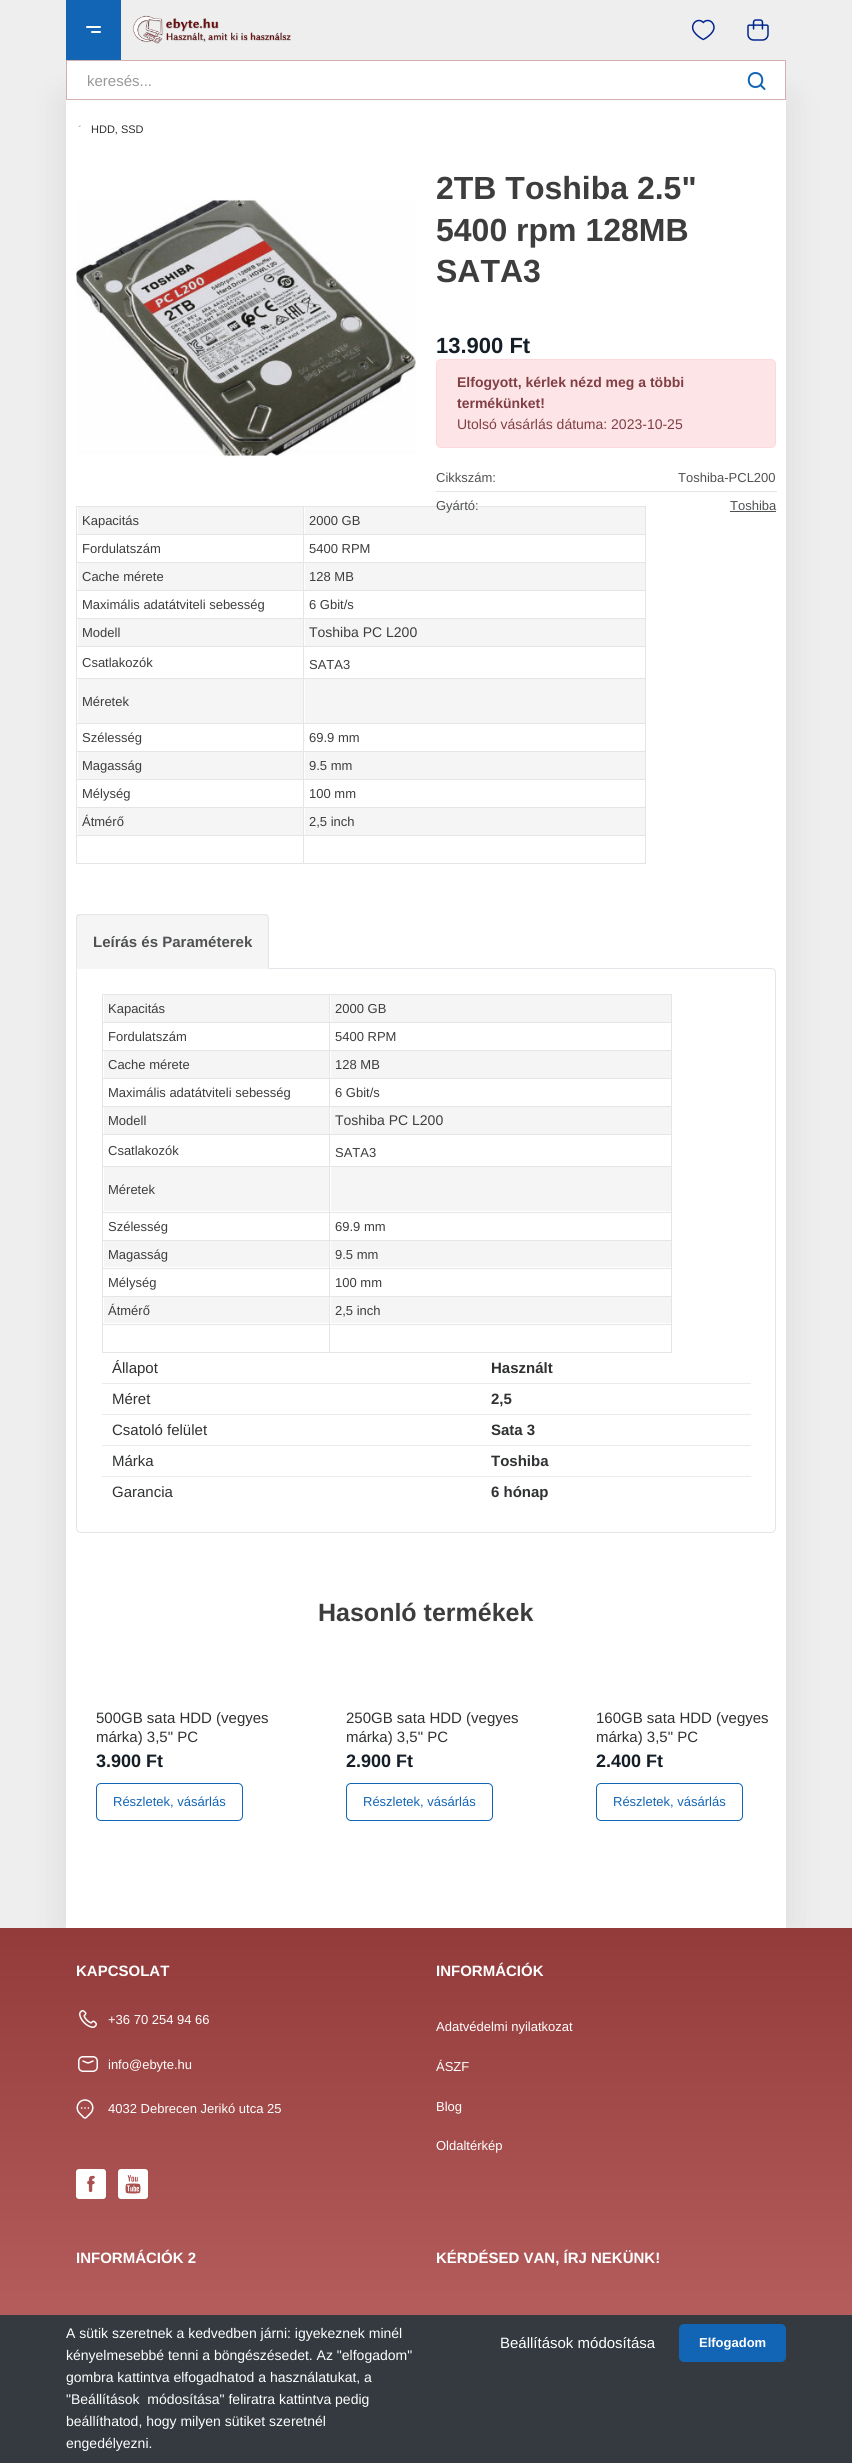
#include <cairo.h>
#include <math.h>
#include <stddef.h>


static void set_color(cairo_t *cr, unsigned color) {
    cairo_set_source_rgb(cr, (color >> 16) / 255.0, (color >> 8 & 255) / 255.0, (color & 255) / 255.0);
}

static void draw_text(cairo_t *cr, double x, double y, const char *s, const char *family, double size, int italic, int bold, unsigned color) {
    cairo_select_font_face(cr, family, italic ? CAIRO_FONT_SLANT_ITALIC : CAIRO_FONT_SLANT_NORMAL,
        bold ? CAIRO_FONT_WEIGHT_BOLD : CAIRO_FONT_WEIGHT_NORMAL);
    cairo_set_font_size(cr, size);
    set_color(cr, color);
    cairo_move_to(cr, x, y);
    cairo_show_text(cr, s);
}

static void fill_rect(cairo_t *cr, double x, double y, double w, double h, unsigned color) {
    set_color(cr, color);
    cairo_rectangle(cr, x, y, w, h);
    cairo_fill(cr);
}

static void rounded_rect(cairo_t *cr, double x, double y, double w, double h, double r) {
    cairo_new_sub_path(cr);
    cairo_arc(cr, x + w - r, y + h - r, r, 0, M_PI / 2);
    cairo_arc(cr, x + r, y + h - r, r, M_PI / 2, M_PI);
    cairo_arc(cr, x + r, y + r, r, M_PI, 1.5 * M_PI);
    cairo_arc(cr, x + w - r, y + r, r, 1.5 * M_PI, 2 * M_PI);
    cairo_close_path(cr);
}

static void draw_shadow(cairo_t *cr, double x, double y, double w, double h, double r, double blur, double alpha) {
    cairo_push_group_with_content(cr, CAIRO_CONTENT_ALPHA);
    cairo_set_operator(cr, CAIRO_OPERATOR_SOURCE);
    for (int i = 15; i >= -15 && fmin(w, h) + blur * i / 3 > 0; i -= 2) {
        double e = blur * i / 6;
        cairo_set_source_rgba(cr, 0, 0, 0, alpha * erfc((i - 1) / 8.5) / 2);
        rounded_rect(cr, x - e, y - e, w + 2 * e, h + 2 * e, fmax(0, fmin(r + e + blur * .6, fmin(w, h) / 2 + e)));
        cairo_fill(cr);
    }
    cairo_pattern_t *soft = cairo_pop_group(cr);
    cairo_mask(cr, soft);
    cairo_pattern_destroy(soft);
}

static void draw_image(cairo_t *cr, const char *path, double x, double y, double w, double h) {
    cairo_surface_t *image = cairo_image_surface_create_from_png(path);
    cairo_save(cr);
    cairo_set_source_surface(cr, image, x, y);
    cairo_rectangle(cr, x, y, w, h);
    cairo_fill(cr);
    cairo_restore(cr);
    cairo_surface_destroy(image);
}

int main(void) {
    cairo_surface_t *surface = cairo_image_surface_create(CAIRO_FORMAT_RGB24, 852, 2463);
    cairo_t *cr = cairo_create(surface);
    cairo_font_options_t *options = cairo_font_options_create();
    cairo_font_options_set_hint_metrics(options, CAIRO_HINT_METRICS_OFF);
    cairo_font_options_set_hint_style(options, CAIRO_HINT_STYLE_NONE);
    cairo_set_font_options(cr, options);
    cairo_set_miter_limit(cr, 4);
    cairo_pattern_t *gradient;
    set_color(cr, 0xEEEEEE);
    cairo_paint(cr);
    set_color(cr, 0x000000);
    draw_shadow(cr, 66, 100, 720, 1828, 0, 17.5, 0.1);
    fill_rect(cr, 66, 0, 55, 60, 0x1265B5);
    set_color(cr, 0xFFFFFF);
    rounded_rect(cr, 86, 26, 15, 2, 1);
    cairo_fill(cr);
    rounded_rect(cr, 91, 31, 10, 2, 1);
    cairo_fill(cr);
    draw_image(cr, "assets/img1.png", 133, 15, 158, 29);
    draw_image(cr, "assets/img2.png", 691, 19, 24, 22);
    draw_image(cr, "assets/img3.png", 747, 19, 22, 22);
    cairo_rectangle(cr, 66.5, 60.5, 719, 39);
    cairo_fill_preserve(cr);
    set_color(cr, 0xD4B0B0);
    cairo_set_line_width(cr, 1);
    cairo_stroke(cr);
    draw_text(cr, 87, 86, "keresés...", "Liberation Sans", 15, 0, 0, 0x979899);
    cairo_new_path(cr);
    cairo_move_to(cr, 764.5, 89);
    cairo_line_to(cr, 760.5, 85);
    cairo_move_to(cr, 755.5, 87);
    cairo_curve_to(cr, 746.5, 87, 746.5, 73, 755.5, 73);
    cairo_curve_to(cr, 764.5, 73, 764.5, 87, 755.5, 87);
    cairo_close_path(cr);
    set_color(cr, 0x1265B5);
    cairo_set_line_width(cr, 2);
    cairo_set_line_cap(cr, CAIRO_LINE_CAP_ROUND);
    cairo_set_line_join(cr, CAIRO_LINE_JOIN_ROUND);
    cairo_stroke(cr);
    fill_rect(cr, 66, 100, 720, 1828, 0xFFFFFF);
    draw_image(cr, "assets/img4.png", 78, 125, 3, 2);
    draw_text(cr, 91, 133, "HDD, SSD", "Liberation Sans", 11, 0, 0, 0x2F3132);
    draw_text(cr, 436, 199, "2TB Toshiba 2.5\"", "Liberation Sans", 32, 0, 1, 0x3D3D3D);
    draw_text(cr, 436, 241, "5400 rpm 128MB", "Liberation Sans", 32, 0, 1, 0x3D3D3D);
    draw_text(cr, 436, 282, "SATA3", "Liberation Sans", 32, 0, 1, 0x3D3D3D);
    draw_text(cr, 436, 353, "13.900 Ft", "Liberation Sans", 22, 0, 1, 0x151E26);
    set_color(cr, 0xFDE4E6);
    rounded_rect(cr, 436.5, 359.5, 339, 88, 4.5);
    cairo_fill_preserve(cr);
    set_color(cr, 0xFDD9DC);
    cairo_set_line_width(cr, 1);
    cairo_set_line_cap(cr, CAIRO_LINE_CAP_BUTT);
    cairo_set_line_join(cr, CAIRO_LINE_JOIN_MITER);
    cairo_stroke(cr);
    draw_text(cr, 457, 387, "Elfogyott, kérlek nézd meg a többi", "Liberation Sans", 14, 0, 1, 0x803F44);
    draw_text(cr, 457, 408, "termékünket!", "Liberation Sans", 14, 0, 1, 0x803F44);
    draw_text(cr, 457, 429, "Utolsó vásárlás dátuma: 2023-10-25", "Liberation Sans", 14, 0, 0, 0x803F44);
    draw_text(cr, 436, 482, "Cikkszám:", "Liberation Sans", 13, 0, 0, 0x4F5153);
    draw_text(cr, 678, 482, "Toshiba-PCL200", "Liberation Sans", 13, 0, 0, 0x4F5153);
    fill_rect(cr, 76, 506, 570, 1, 0xE5E5E5);
    fill_rect(cr, 305, 507, 340, 27, 0xF5F5F5);
    draw_text(cr, 436, 510, "Gyártó:", "Liberation Sans", 13, 0, 0, 0x4F5153);
    fill_rect(cr, 436, 491, 341, 1, 0xE4E4EA);
    draw_text(cr, 730, 510, "Toshiba", "Liberation Sans", 13, 0, 0, 0x4F5153);
    fill_rect(cr, 730, 511, 46, 1, 0x4F5153);
    draw_image(cr, "assets/img5.png", 76, 199, 340, 258);
    fill_rect(cr, 645, 506, 1, 358, 0xE5E5E5);
    fill_rect(cr, 78, 507, 225, 27, 0xF5F5F5);
    fill_rect(cr, 303, 863, 343, 1, 0xE5E5E5);
    fill_rect(cr, 303, 835, 1, 29, 0xE5E5E5);
    fill_rect(cr, 303, 835, 343, 1, 0xE5E5E5);
    fill_rect(cr, 303, 807, 1, 29, 0xE5E5E5);
    fill_rect(cr, 303, 807, 343, 1, 0xE5E5E5);
    fill_rect(cr, 303, 779, 1, 29, 0xE5E5E5);
    fill_rect(cr, 303, 779, 343, 1, 0xE5E5E5);
    fill_rect(cr, 303, 751, 1, 29, 0xE5E5E5);
    fill_rect(cr, 303, 751, 343, 1, 0xE5E5E5);
    fill_rect(cr, 303, 723, 1, 29, 0xE5E5E5);
    fill_rect(cr, 303, 723, 343, 1, 0xE5E5E5);
    fill_rect(cr, 303, 678, 1, 46, 0xE5E5E5);
    fill_rect(cr, 303, 678, 343, 1, 0xE5E5E5);
    fill_rect(cr, 303, 646, 1, 33, 0xE5E5E5);
    fill_rect(cr, 303, 646, 343, 1, 0xE5E5E5);
    fill_rect(cr, 303, 618, 1, 29, 0xE5E5E5);
    fill_rect(cr, 303, 618, 343, 1, 0xE5E5E5);
    fill_rect(cr, 303, 590, 1, 29, 0xE5E5E5);
    fill_rect(cr, 303, 590, 343, 1, 0xE5E5E5);
    fill_rect(cr, 303, 562, 1, 29, 0xE5E5E5);
    fill_rect(cr, 303, 562, 343, 1, 0xE5E5E5);
    fill_rect(cr, 303, 534, 1, 29, 0xE5E5E5);
    fill_rect(cr, 303, 534, 343, 1, 0xE5E5E5);
    fill_rect(cr, 303, 506, 1, 29, 0xE5E5E5);
    fill_rect(cr, 76, 863, 228, 1, 0xE5E5E5);
    fill_rect(cr, 76, 835, 1, 29, 0xE5E5E5);
    fill_rect(cr, 76, 835, 228, 1, 0xE5E5E5);
    fill_rect(cr, 76, 807, 1, 29, 0xE5E5E5);
    fill_rect(cr, 76, 807, 228, 1, 0xE5E5E5);
    fill_rect(cr, 76, 779, 1, 29, 0xE5E5E5);
    fill_rect(cr, 76, 779, 228, 1, 0xE5E5E5);
    fill_rect(cr, 76, 751, 1, 29, 0xE5E5E5);
    fill_rect(cr, 76, 751, 228, 1, 0xE5E5E5);
    fill_rect(cr, 76, 723, 1, 29, 0xE5E5E5);
    fill_rect(cr, 76, 723, 228, 1, 0xE5E5E5);
    fill_rect(cr, 76, 678, 1, 46, 0xE5E5E5);
    fill_rect(cr, 76, 678, 228, 1, 0xE5E5E5);
    fill_rect(cr, 76, 646, 1, 33, 0xE5E5E5);
    fill_rect(cr, 76, 646, 228, 1, 0xE5E5E5);
    fill_rect(cr, 76, 618, 1, 29, 0xE5E5E5);
    fill_rect(cr, 76, 618, 228, 1, 0xE5E5E5);
    fill_rect(cr, 76, 590, 1, 29, 0xE5E5E5);
    fill_rect(cr, 76, 590, 228, 1, 0xE5E5E5);
    fill_rect(cr, 76, 562, 1, 29, 0xE5E5E5);
    fill_rect(cr, 76, 562, 228, 1, 0xE5E5E5);
    fill_rect(cr, 76, 534, 1, 29, 0xE5E5E5);
    fill_rect(cr, 76, 534, 228, 1, 0xE5E5E5);
    fill_rect(cr, 76, 506, 1, 29, 0xE5E5E5);
    draw_text(cr, 82, 525, "Kapacitás", "Liberation Sans", 13, 0, 0, 0x3D3D3D);
    draw_text(cr, 309, 525, "2000 GB", "Liberation Sans", 13, 0, 0, 0x3D3D3D);
    draw_text(cr, 82, 553, "Fordulatszám", "Liberation Sans", 13, 0, 0, 0x3D3D3D);
    draw_text(cr, 309, 553, "5400 RPM", "Liberation Sans", 13, 0, 0, 0x3D3D3D);
    fill_rect(cr, 78, 563, 225, 27, 0xF5F5F5);
    draw_text(cr, 82, 581, "Cache mérete", "Liberation Sans", 13, 0, 0, 0x3D3D3D);
    fill_rect(cr, 305, 563, 340, 27, 0xF5F5F5);
    draw_text(cr, 309, 581, "128 MB", "Liberation Sans", 13, 0, 0, 0x3D3D3D);
    draw_text(cr, 82, 609, "Maximális adatátviteli sebesség", "Liberation Sans", 13, 0, 0, 0x3D3D3D);
    draw_text(cr, 309, 609, "6 Gbit/s", "Liberation Sans", 13, 0, 0, 0x3D3D3D);
    fill_rect(cr, 78, 619, 225, 27, 0xF5F5F5);
    draw_text(cr, 82, 637, "Modell", "Liberation Sans", 13, 0, 0, 0x3D3D3D);
    fill_rect(cr, 305, 619, 340, 27, 0xF5F5F5);
    draw_text(cr, 309, 637, "Toshiba PC L200", "Liberation Sans", 14, 0, 0, 0x3D3D3D);
    draw_text(cr, 82, 667, "Csatlakozók", "Liberation Sans", 13, 0, 0, 0x3D3D3D);
    draw_text(cr, 309, 669, "SATA3", "Liberation Sans", 13, 0, 0, 0x3D3D3D);
    fill_rect(cr, 78, 679, 225, 44, 0xF5F5F5);
    draw_text(cr, 82, 706, "Méretek", "Liberation Sans", 13, 0, 0, 0x3D3D3D);
    fill_rect(cr, 305, 679, 340, 44, 0xF5F5F5);
    draw_text(cr, 82, 742, "Szélesség", "Liberation Sans", 13, 0, 0, 0x3D3D3D);
    draw_text(cr, 309, 742, "69.9 mm", "Liberation Sans", 13, 0, 0, 0x3D3D3D);
    fill_rect(cr, 78, 752, 225, 27, 0xF5F5F5);
    draw_text(cr, 82, 770, "Magasság", "Liberation Sans", 13, 0, 0, 0x3D3D3D);
    fill_rect(cr, 305, 752, 340, 27, 0xF5F5F5);
    draw_text(cr, 309, 770, "9.5 mm", "Liberation Sans", 13, 0, 0, 0x3D3D3D);
    draw_text(cr, 82, 798, "Mélység", "Liberation Sans", 13, 0, 0, 0x3D3D3D);
    draw_text(cr, 309, 798, "100 mm", "Liberation Sans", 13, 0, 0, 0x3D3D3D);
    fill_rect(cr, 78, 808, 225, 27, 0xF5F5F5);
    draw_text(cr, 82, 826, "Átmérő", "Liberation Sans", 13, 0, 0, 0x3D3D3D);
    fill_rect(cr, 305, 808, 340, 27, 0xF5F5F5);
    draw_text(cr, 309, 826, "2,5 inch", "Liberation Sans", 13, 0, 0, 0x3D3D3D);
    cairo_new_path(cr);
    cairo_move_to(cr, 76.5, 968.5);
    cairo_line_to(cr, 771, 968.5);
    cairo_curve_to(cr, 773.5, 968.5, 775.5, 970.5, 775.5, 973);
    cairo_line_to(cr, 775.5, 1528);
    cairo_curve_to(cr, 775.5, 1530.5, 773.5, 1532.5, 771, 1532.5);
    cairo_line_to(cr, 81, 1532.5);
    cairo_curve_to(cr, 78.5, 1532.5, 76.5, 1530.5, 76.5, 1528);
    cairo_close_path(cr);
    set_color(cr, 0xE4E4EA);
    cairo_stroke(cr);
    set_color(cr, 0xF5F5F5);
    cairo_new_path(cr);
    cairo_move_to(cr, 81, 914);
    cairo_line_to(cr, 264, 914);
    cairo_curve_to(cr, 267, 914, 269, 916, 269, 919);
    cairo_line_to(cr, 269, 969);
    cairo_line_to(cr, 76, 969);
    cairo_line_to(cr, 76, 919);
    cairo_curve_to(cr, 76, 916, 78, 914, 81, 914);
    cairo_close_path(cr);
    cairo_fill(cr);
    set_color(cr, 0xE4E4EA);
    cairo_new_path(cr);
    cairo_move_to(cr, 81, 914);
    cairo_curve_to(cr, 80, 914, 78, 914, 77, 915);
    cairo_line_to(cr, 78, 916);
    cairo_curve_to(cr, 79, 916, 80, 915, 81, 915);
    cairo_line_to(cr, 264, 915);
    cairo_curve_to(cr, 265, 915, 266, 916, 267, 916);
    cairo_line_to(cr, 268, 915);
    cairo_curve_to(cr, 267, 914, 266, 914, 264, 914);
    cairo_close_path(cr);
    cairo_fill(cr);
    cairo_new_path(cr);
    cairo_move_to(cr, 269, 969);
    cairo_line_to(cr, 269, 919);
    cairo_curve_to(cr, 269, 918, 268, 916, 268, 915);
    cairo_line_to(cr, 267, 916);
    cairo_line_to(cr, 268, 918);
    cairo_line_to(cr, 268, 968);
    cairo_close_path(cr);
    cairo_fill(cr);
    set_color(cr, 0xF5F5F5);
    cairo_new_path(cr);
    cairo_move_to(cr, 269, 969);
    cairo_line_to(cr, 268, 968);
    cairo_line_to(cr, 77, 968);
    cairo_line_to(cr, 76, 969);
    cairo_close_path(cr);
    cairo_fill(cr);
    set_color(cr, 0xE4E4EA);
    cairo_new_path(cr);
    cairo_move_to(cr, 76, 969);
    cairo_line_to(cr, 77, 968);
    cairo_line_to(cr, 77, 918);
    cairo_line_to(cr, 78, 916);
    cairo_line_to(cr, 77, 915);
    cairo_curve_to(cr, 76, 916, 76, 918, 76, 919);
    cairo_close_path(cr);
    cairo_fill(cr);
    draw_text(cr, 93, 947, "Leírás és Paraméterek", "Liberation Sans", 15, 0, 1, 0x4F5153);
    fill_rect(cr, 102, 994, 570, 1, 0xE5E5E5);
    fill_rect(cr, 671, 994, 1, 359, 0xE5E5E5);
    fill_rect(cr, 104, 995, 225, 27, 0xF5F5F5);
    fill_rect(cr, 329, 1352, 343, 1, 0xE5E5E5);
    fill_rect(cr, 329, 1324, 1, 29, 0xE5E5E5);
    fill_rect(cr, 329, 1324, 343, 1, 0xE5E5E5);
    fill_rect(cr, 329, 1296, 1, 29, 0xE5E5E5);
    fill_rect(cr, 329, 1296, 343, 1, 0xE5E5E5);
    fill_rect(cr, 329, 1268, 1, 29, 0xE5E5E5);
    fill_rect(cr, 329, 1268, 343, 1, 0xE5E5E5);
    fill_rect(cr, 329, 1240, 1, 29, 0xE5E5E5);
    fill_rect(cr, 329, 1240, 343, 1, 0xE5E5E5);
    fill_rect(cr, 329, 1212, 1, 29, 0xE5E5E5);
    fill_rect(cr, 329, 1212, 343, 1, 0xE5E5E5);
    fill_rect(cr, 329, 1166, 1, 47, 0xE5E5E5);
    fill_rect(cr, 329, 1166, 343, 1, 0xE5E5E5);
    fill_rect(cr, 329, 1134, 1, 33, 0xE5E5E5);
    fill_rect(cr, 329, 1134, 343, 1, 0xE5E5E5);
    fill_rect(cr, 329, 1106, 1, 29, 0xE5E5E5);
    fill_rect(cr, 329, 1106, 343, 1, 0xE5E5E5);
    fill_rect(cr, 329, 1078, 1, 29, 0xE5E5E5);
    fill_rect(cr, 329, 1078, 343, 1, 0xE5E5E5);
    fill_rect(cr, 329, 1050, 1, 29, 0xE5E5E5);
    fill_rect(cr, 329, 1050, 343, 1, 0xE5E5E5);
    fill_rect(cr, 329, 1022, 1, 29, 0xE5E5E5);
    fill_rect(cr, 329, 1022, 343, 1, 0xE5E5E5);
    fill_rect(cr, 329, 994, 1, 29, 0xE5E5E5);
    fill_rect(cr, 102, 1352, 228, 1, 0xE5E5E5);
    fill_rect(cr, 102, 1324, 1, 29, 0xE5E5E5);
    fill_rect(cr, 102, 1324, 228, 1, 0xE5E5E5);
    fill_rect(cr, 102, 1296, 1, 29, 0xE5E5E5);
    fill_rect(cr, 102, 1296, 228, 1, 0xE5E5E5);
    fill_rect(cr, 102, 1268, 1, 29, 0xE5E5E5);
    fill_rect(cr, 102, 1268, 228, 1, 0xE5E5E5);
    fill_rect(cr, 102, 1240, 1, 29, 0xE5E5E5);
    fill_rect(cr, 102, 1240, 228, 1, 0xE5E5E5);
    fill_rect(cr, 102, 1212, 1, 29, 0xE5E5E5);
    fill_rect(cr, 102, 1212, 228, 1, 0xE5E5E5);
    fill_rect(cr, 102, 1166, 1, 47, 0xE5E5E5);
    fill_rect(cr, 102, 1166, 228, 1, 0xE5E5E5);
    fill_rect(cr, 102, 1134, 1, 33, 0xE5E5E5);
    fill_rect(cr, 102, 1134, 228, 1, 0xE5E5E5);
    fill_rect(cr, 102, 1106, 1, 29, 0xE5E5E5);
    fill_rect(cr, 102, 1106, 228, 1, 0xE5E5E5);
    fill_rect(cr, 102, 1078, 1, 29, 0xE5E5E5);
    fill_rect(cr, 102, 1078, 228, 1, 0xE5E5E5);
    fill_rect(cr, 102, 1050, 1, 29, 0xE5E5E5);
    fill_rect(cr, 102, 1050, 228, 1, 0xE5E5E5);
    fill_rect(cr, 102, 1022, 1, 29, 0xE5E5E5);
    fill_rect(cr, 102, 1022, 228, 1, 0xE5E5E5);
    fill_rect(cr, 102, 994, 1, 29, 0xE5E5E5);
    draw_text(cr, 108, 1013, "Kapacitás", "Liberation Sans", 13, 0, 0, 0x3D3D3D);
    fill_rect(cr, 331, 995, 340, 27, 0xF5F5F5);
    draw_text(cr, 335, 1013, "2000 GB", "Liberation Sans", 13, 0, 0, 0x3D3D3D);
    draw_text(cr, 108, 1041, "Fordulatszám", "Liberation Sans", 13, 0, 0, 0x3D3D3D);
    draw_text(cr, 335, 1041, "5400 RPM", "Liberation Sans", 13, 0, 0, 0x3D3D3D);
    fill_rect(cr, 104, 1051, 225, 27, 0xF5F5F5);
    draw_text(cr, 108, 1069, "Cache mérete", "Liberation Sans", 13, 0, 0, 0x3D3D3D);
    fill_rect(cr, 331, 1051, 340, 27, 0xF5F5F5);
    draw_text(cr, 335, 1069, "128 MB", "Liberation Sans", 13, 0, 0, 0x3D3D3D);
    draw_text(cr, 108, 1097, "Maximális adatátviteli sebesség", "Liberation Sans", 13, 0, 0, 0x3D3D3D);
    draw_text(cr, 335, 1097, "6 Gbit/s", "Liberation Sans", 13, 0, 0, 0x3D3D3D);
    fill_rect(cr, 104, 1107, 225, 27, 0xF5F5F5);
    draw_text(cr, 108, 1125, "Modell", "Liberation Sans", 13, 0, 0, 0x3D3D3D);
    fill_rect(cr, 331, 1107, 340, 27, 0xF5F5F5);
    draw_text(cr, 335, 1125, "Toshiba PC L200", "Liberation Sans", 14, 0, 0, 0x3D3D3D);
    draw_text(cr, 108, 1155, "Csatlakozók", "Liberation Sans", 13, 0, 0, 0x3D3D3D);
    draw_text(cr, 335, 1157, "SATA3", "Liberation Sans", 13, 0, 0, 0x3D3D3D);
    fill_rect(cr, 104, 1167, 225, 44, 0xF5F5F5);
    draw_text(cr, 108, 1194, "Méretek", "Liberation Sans", 13, 0, 0, 0x3D3D3D);
    fill_rect(cr, 331, 1167, 340, 44, 0xF5F5F5);
    draw_text(cr, 108, 1231, "Szélesség", "Liberation Sans", 13, 0, 0, 0x3D3D3D);
    draw_text(cr, 335, 1231, "69.9 mm", "Liberation Sans", 13, 0, 0, 0x3D3D3D);
    fill_rect(cr, 104, 1241, 225, 26, 0xF5F5F5);
    draw_text(cr, 108, 1259, "Magasság", "Liberation Sans", 13, 0, 0, 0x3D3D3D);
    fill_rect(cr, 331, 1241, 340, 26, 0xF5F5F5);
    draw_text(cr, 335, 1259, "9.5 mm", "Liberation Sans", 13, 0, 0, 0x3D3D3D);
    draw_text(cr, 108, 1287, "Mélység", "Liberation Sans", 13, 0, 0, 0x3D3D3D);
    draw_text(cr, 335, 1287, "100 mm", "Liberation Sans", 13, 0, 0, 0x3D3D3D);
    fill_rect(cr, 104, 1297, 225, 26, 0xF5F5F5);
    draw_text(cr, 108, 1315, "Átmérő", "Liberation Sans", 13, 0, 0, 0x3D3D3D);
    fill_rect(cr, 331, 1297, 340, 26, 0xF5F5F5);
    draw_text(cr, 335, 1315, "2,5 inch", "Liberation Sans", 13, 0, 0, 0x3D3D3D);
    draw_text(cr, 112, 1373, "Állapot", "Liberation Sans", 15, 0, 0, 0x2F3132);
    draw_text(cr, 491, 1373, "Használt", "Liberation Sans", 15, 0, 1, 0x2F3132);
    draw_text(cr, 112, 1404, "Méret", "Liberation Sans", 15, 0, 0, 0x2F3132);
    fill_rect(cr, 102, 1383, 649, 1, 0xE9ECEF);
    draw_text(cr, 491, 1404, "2,5", "Liberation Sans", 15, 0, 1, 0x2F3132);
    draw_text(cr, 112, 1435, "Csatoló felület", "Liberation Sans", 15, 0, 0, 0x2F3132);
    fill_rect(cr, 102, 1414, 649, 1, 0xE9ECEF);
    draw_text(cr, 491, 1435, "Sata 3", "Liberation Sans", 15, 0, 1, 0x2F3132);
    draw_text(cr, 112, 1466, "Márka", "Liberation Sans", 15, 0, 0, 0x2F3132);
    fill_rect(cr, 102, 1445, 649, 1, 0xE9ECEF);
    draw_text(cr, 491, 1466, "Toshiba", "Liberation Sans", 15, 0, 1, 0x2F3132);
    draw_text(cr, 112, 1497, "Garancia", "Liberation Sans", 15, 0, 0, 0x2F3132);
    fill_rect(cr, 102, 1476, 649, 1, 0xE9ECEF);
    draw_text(cr, 491, 1497, "6 hónap", "Liberation Sans", 15, 0, 1, 0x2F3132);
    draw_text(cr, 318, 1621, "Hasonló termékek", "Liberation Sans", 25, 0, 1, 0x3D3D3D);
    draw_text(cr, 96, 1723, "500GB sata HDD (vegyes", "Liberation Sans", 15, 0, 0, 0x2F3132);
    draw_text(cr, 96, 1742, "márka) 3,5\" PC", "Liberation Sans", 15, 0, 0, 0x2F3132);
    draw_text(cr, 96, 1767, "3.900 Ft", "Liberation Sans", 18, 0, 1, 0x151E26);
    rounded_rect(cr, 96.5, 1783.5, 146, 37, 4.5);
    set_color(cr, 0x1265B5);
    cairo_stroke(cr);
    draw_text(cr, 113, 1806, "Részletek, vásárlás", "Liberation Sans", 13, 0, 0, 0x1265B5);
    draw_text(cr, 346, 1723, "250GB sata HDD (vegyes", "Liberation Sans", 15, 0, 0, 0x2F3132);
    draw_text(cr, 346, 1742, "márka) 3,5\" PC", "Liberation Sans", 15, 0, 0, 0x2F3132);
    draw_text(cr, 346, 1767, "2.900 Ft", "Liberation Sans", 18, 0, 1, 0x151E26);
    rounded_rect(cr, 346.5, 1783.5, 146, 37, 4.5);
    set_color(cr, 0x1265B5);
    cairo_stroke(cr);
    draw_text(cr, 363, 1806, "Részletek, vásárlás", "Liberation Sans", 13, 0, 0, 0x1265B5);
    draw_text(cr, 596, 1723, "160GB sata HDD (vegyes", "Liberation Sans", 15, 0, 0, 0x2F3132);
    draw_text(cr, 596, 1742, "márka) 3,5\" PC", "Liberation Sans", 15, 0, 0, 0x2F3132);
    draw_text(cr, 596, 1767, "2.400 Ft", "Liberation Sans", 18, 0, 1, 0x151E26);
    rounded_rect(cr, 596.5, 1783.5, 146, 37, 4.5);
    set_color(cr, 0x1265B5);
    cairo_stroke(cr);
    draw_text(cr, 613, 1806, "Részletek, vásárlás", "Liberation Sans", 13, 0, 0, 0x1265B5);
    gradient = cairo_pattern_create_linear(426, 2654, 426, 1928);
    cairo_pattern_add_color_stop_rgba(gradient, 0, 0.824, 0.475, 0.475, 1);
    cairo_pattern_add_color_stop_rgba(gradient, 1, 0.576, 0.227, 0.227, 1);
    cairo_set_source(cr, gradient);
    cairo_pattern_destroy(gradient);
    cairo_rectangle(cr, 0, 1928, 852, 387);
    cairo_fill(cr);
    draw_text(cr, 76, 1976, "KAPCSOLAT", "Liberation Sans", 15, 0, 1, 0xFFFFFF);
    draw_image(cr, "assets/img6.png", 79, 2010, 18, 18);
    draw_text(cr, 108, 2024, "+36 70 254 94 66", "Liberation Sans", 13, 0, 0, 0xFFFFFF);
    rounded_rect(cr, 78.75, 2056.75, 18.5, 14.5, 4.25);
    cairo_set_line_width(cr, 1.5);
    cairo_stroke(cr);
    cairo_new_path(cr);
    cairo_move_to(cr, 83, 2061);
    cairo_curve_to(cr, 88.5, 2063.5, 87.5, 2063.5, 93, 2061);
    cairo_set_line_cap(cr, CAIRO_LINE_CAP_ROUND);
    cairo_set_line_join(cr, CAIRO_LINE_JOIN_ROUND);
    cairo_stroke(cr);
    draw_text(cr, 108, 2069, "info@ebyte.hu", "Liberation Sans", 13, 0, 0, 0xFFFFFF);
    draw_image(cr, "assets/img7.png", 76, 2099, 18, 20);
    draw_text(cr, 108, 2113, "4032 Debrecen Jerikó utca 25", "Liberation Sans", 13, 0, 0, 0xFFFFFF);
    draw_image(cr, "assets/img8.png", 76, 2169, 30, 30);
    draw_image(cr, "assets/img9.png", 118, 2169, 30, 30);
    draw_text(cr, 436, 1976, "INFORMÁCIÓK", "Liberation Sans", 15, 0, 1, 0xFFFFFF);
    draw_text(cr, 436, 2031, "Adatvédelmi nyilatkozat", "Liberation Sans", 13, 0, 0, 0xFFFFFF);
    draw_text(cr, 436, 2071, "ÁSZF", "Liberation Sans", 13, 0, 0, 0xFFFFFF);
    draw_text(cr, 436, 2111, "Blog", "Liberation Sans", 13, 0, 0, 0xFFFFFF);
    draw_text(cr, 436, 2150, "Oldaltérkép", "Liberation Sans", 13, 0, 0, 0xFFFFFF);
    draw_text(cr, 76, 2263, "INFORMÁCIÓK 2", "Liberation Sans", 15, 0, 1, 0xFFFFFF);
    draw_text(cr, 436, 2263, "KÉRDÉSED VAN, ÍRJ NEKÜNK!", "Liberation Sans", 15, 0, 1, 0xFFFFFF);
    fill_rect(cr, 0, 2315, 852, 148, 0x343A40);
    draw_text(cr, 66, 2338, "A sütik szeretnek a kedvedben járni: igyekeznek minél", "Liberation Sans", 14, 0, 0, 0xFFFFFF);
    draw_text(cr, 66, 2360, "kényelmesebbé tenni a böngészésedet. Az \"elfogadom\"", "Liberation Sans", 14, 0, 0, 0xFFFFFF);
    draw_text(cr, 66, 2382, "gombra kattintva elfogadhatod a használatukat, a", "Liberation Sans", 14, 0, 0, 0xFFFFFF);
    draw_text(cr, 66, 2404, "\"Beállítások  módosítása\" feliratra kattintva pedig", "Liberation Sans", 14, 0, 0, 0xFFFFFF);
    draw_text(cr, 66, 2426, "beállíthatod, hogy milyen sütiket szeretnél", "Liberation Sans", 14, 0, 0, 0xFFFFFF);
    draw_text(cr, 66, 2448, "engedélyezni.", "Liberation Sans", 14, 0, 0, 0xFFFFFF);
    draw_text(cr, 500, 2348, "Beállítások módosítása", "Liberation Sans", 15, 0, 0, 0xFFFFFF);
    set_color(cr, 0x1265B5);
    rounded_rect(cr, 679, 2324, 107, 38, 5);
    cairo_fill(cr);
    draw_text(cr, 699, 2347, "Elfogadom", "Liberation Sans", 13, 0, 1, 0xFFFFFF);
    cairo_surface_write_to_png(surface, "output.png");
    cairo_font_options_destroy(options);
    cairo_destroy(cr);
    cairo_surface_destroy(surface);
    return 0;
}
